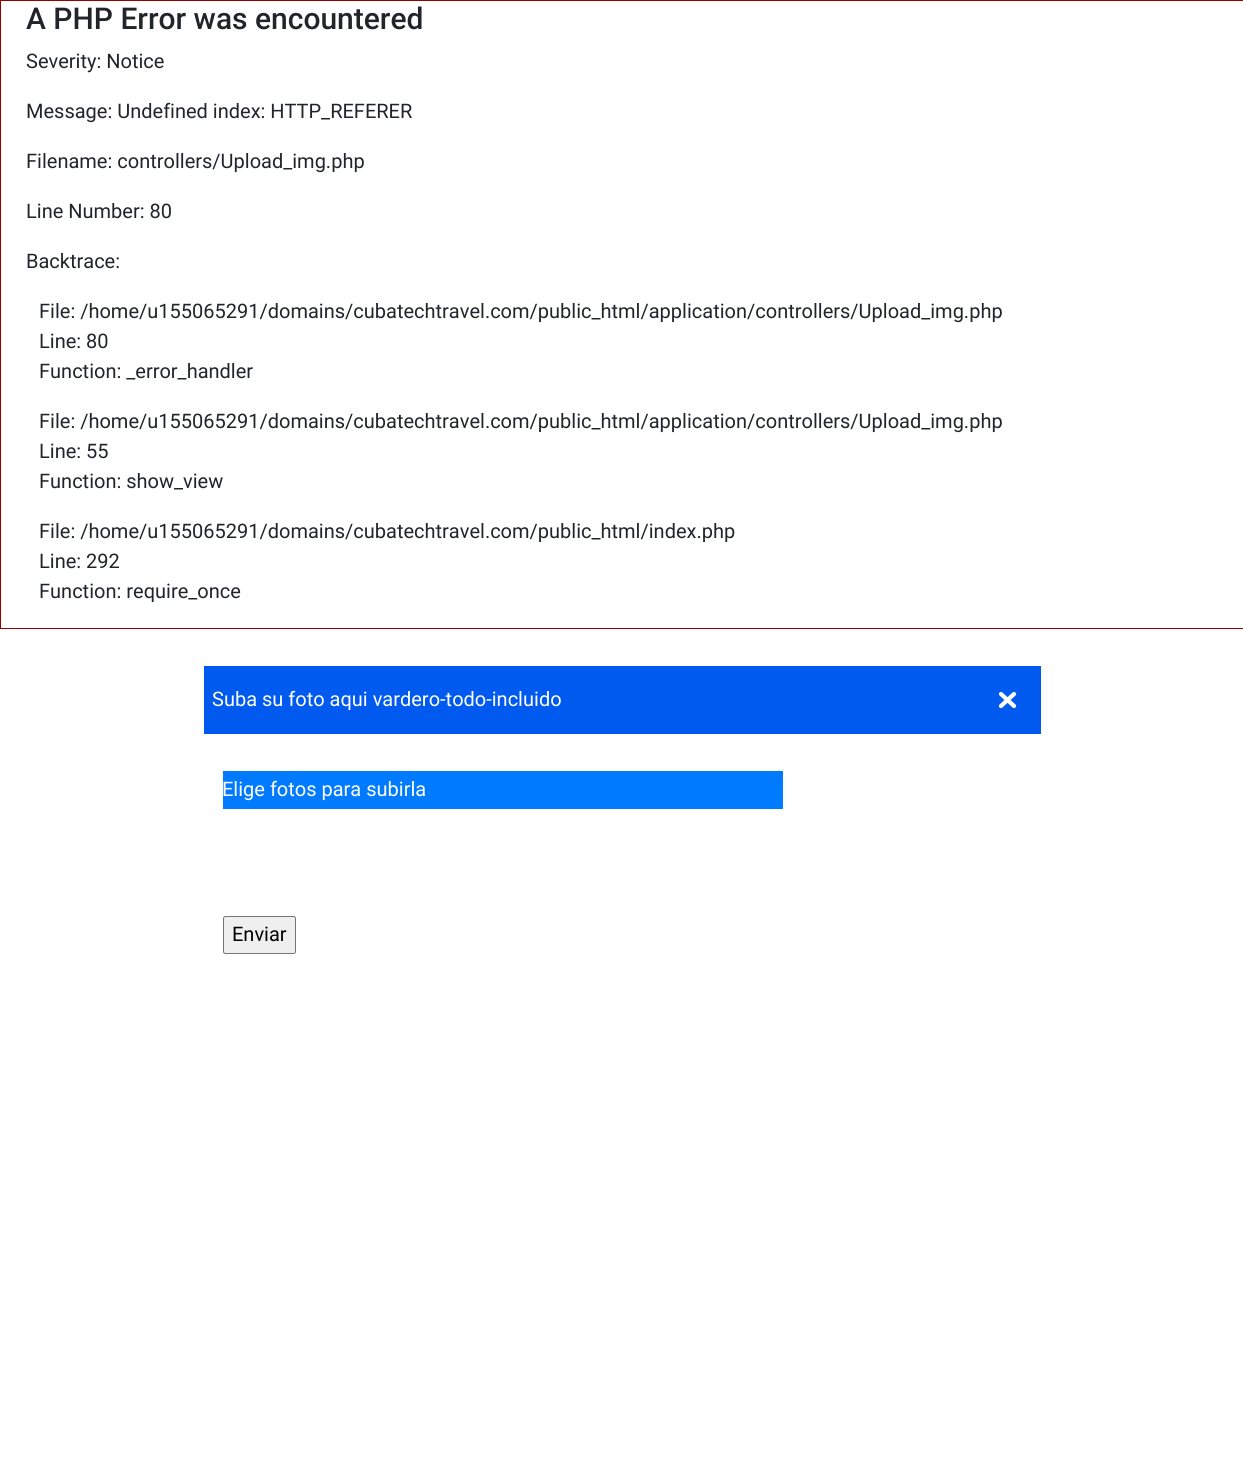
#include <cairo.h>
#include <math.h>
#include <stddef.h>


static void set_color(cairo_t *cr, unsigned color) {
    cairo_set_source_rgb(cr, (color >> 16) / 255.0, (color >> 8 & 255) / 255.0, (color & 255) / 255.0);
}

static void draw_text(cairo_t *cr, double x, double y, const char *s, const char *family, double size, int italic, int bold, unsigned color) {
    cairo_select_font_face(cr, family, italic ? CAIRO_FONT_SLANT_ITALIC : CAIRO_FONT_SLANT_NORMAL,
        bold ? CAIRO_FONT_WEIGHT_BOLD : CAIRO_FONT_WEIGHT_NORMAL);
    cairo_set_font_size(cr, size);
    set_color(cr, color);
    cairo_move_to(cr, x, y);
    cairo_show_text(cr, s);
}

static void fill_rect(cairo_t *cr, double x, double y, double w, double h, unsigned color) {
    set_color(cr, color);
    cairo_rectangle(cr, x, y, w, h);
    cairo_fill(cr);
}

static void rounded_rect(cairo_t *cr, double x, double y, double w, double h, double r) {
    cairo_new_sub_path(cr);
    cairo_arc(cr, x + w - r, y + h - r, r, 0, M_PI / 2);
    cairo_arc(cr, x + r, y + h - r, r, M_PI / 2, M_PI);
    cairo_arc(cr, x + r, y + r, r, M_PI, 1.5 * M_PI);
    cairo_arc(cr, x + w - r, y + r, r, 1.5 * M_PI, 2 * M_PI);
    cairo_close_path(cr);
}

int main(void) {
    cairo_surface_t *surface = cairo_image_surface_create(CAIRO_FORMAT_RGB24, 1243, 1458);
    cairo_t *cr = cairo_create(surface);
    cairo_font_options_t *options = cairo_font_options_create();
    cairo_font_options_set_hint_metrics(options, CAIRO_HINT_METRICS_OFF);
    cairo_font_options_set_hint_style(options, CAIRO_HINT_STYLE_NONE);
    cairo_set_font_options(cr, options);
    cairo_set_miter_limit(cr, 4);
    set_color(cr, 0xFFFFFF);
    cairo_paint(cr);
    cairo_rectangle(cr, 0.5, 0.5, 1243, 628);
    set_color(cr, 0x990000);
    cairo_set_line_width(cr, 1);
    cairo_stroke(cr);
    draw_text(cr, 26, 29, "A PHP Error was encountered", "Roboto Medium", 30, 0, 0, 0x212529);
    draw_text(cr, 26, 68, "Severity: Notice", "Roboto", 20, 0, 0, 0x212529);
    draw_text(cr, 26, 118, "Message: Undefined index: HTTP_REFERER", "Roboto", 20, 0, 0, 0x212529);
    draw_text(cr, 26, 168, "Filename: controllers/Upload_img.php", "Roboto", 20, 0, 0, 0x212529);
    draw_text(cr, 26, 218, "Line Number: 80", "Roboto", 20, 0, 0, 0x212529);
    draw_text(cr, 26, 268, "Backtrace:", "Roboto", 20, 0, 0, 0x212529);
    draw_text(cr, 39, 318, "File: /home/u155065291/domains/cubatechtravel.com/public_html/application/controllers/Upload_img.php", "Roboto", 20, 0, 0, 0x212529);
    draw_text(cr, 39, 348, "Line: 80", "Roboto", 20, 0, 0, 0x212529);
    draw_text(cr, 39, 378, "Function: _error_handler", "Roboto", 20, 0, 0, 0x212529);
    draw_text(cr, 39, 428, "File: /home/u155065291/domains/cubatechtravel.com/public_html/application/controllers/Upload_img.php", "Roboto", 20, 0, 0, 0x212529);
    draw_text(cr, 39, 458, "Line: 55", "Roboto", 20, 0, 0, 0x212529);
    draw_text(cr, 39, 488, "Function: show_view", "Roboto", 20, 0, 0, 0x212529);
    draw_text(cr, 39, 538, "File: /home/u155065291/domains/cubatechtravel.com/public_html/index.php", "Roboto", 20, 0, 0, 0x212529);
    draw_text(cr, 39, 568, "Line: 292", "Roboto", 20, 0, 0, 0x212529);
    draw_text(cr, 39, 598, "Function: require_once", "Roboto", 20, 0, 0, 0x212529);
    fill_rect(cr, 204, 666, 837, 68, 0x005AF0);
    draw_text(cr, 212, 706, "Suba su foto aqui vardero-todo-incluido", "Roboto", 20, 0, 0, 0xFFFFFF);
    cairo_new_path(cr);
    cairo_move_to(cr, 1014, 694);
    cairo_line_to(cr, 1001, 706);
    cairo_move_to(cr, 1001, 694);
    cairo_line_to(cr, 1014, 706);
    cairo_set_line_width(cr, 4.2);
    cairo_set_line_cap(cr, CAIRO_LINE_CAP_ROUND);
    cairo_set_line_join(cr, CAIRO_LINE_JOIN_ROUND);
    cairo_stroke(cr);
    fill_rect(cr, 223, 771, 560, 38, 0x007BFF);
    draw_text(cr, 222, 796, "Elige fotos para subirla", "Roboto", 20, 0, 0, 0xFFFFFF);
    set_color(cr, 0xEFEFEF);
    rounded_rect(cr, 223.5, 916.5, 72, 37, 2);
    cairo_fill_preserve(cr);
    set_color(cr, 0x767676);
    cairo_set_line_width(cr, 1);
    cairo_set_line_cap(cr, CAIRO_LINE_CAP_BUTT);
    cairo_set_line_join(cr, CAIRO_LINE_JOIN_MITER);
    cairo_stroke(cr);
    draw_text(cr, 232, 941, "Enviar", "Roboto", 20, 0, 0, 0x000000);
    cairo_surface_write_to_png(surface, "output.png");
    cairo_font_options_destroy(options);
    cairo_destroy(cr);
    cairo_surface_destroy(surface);
    return 0;
}
